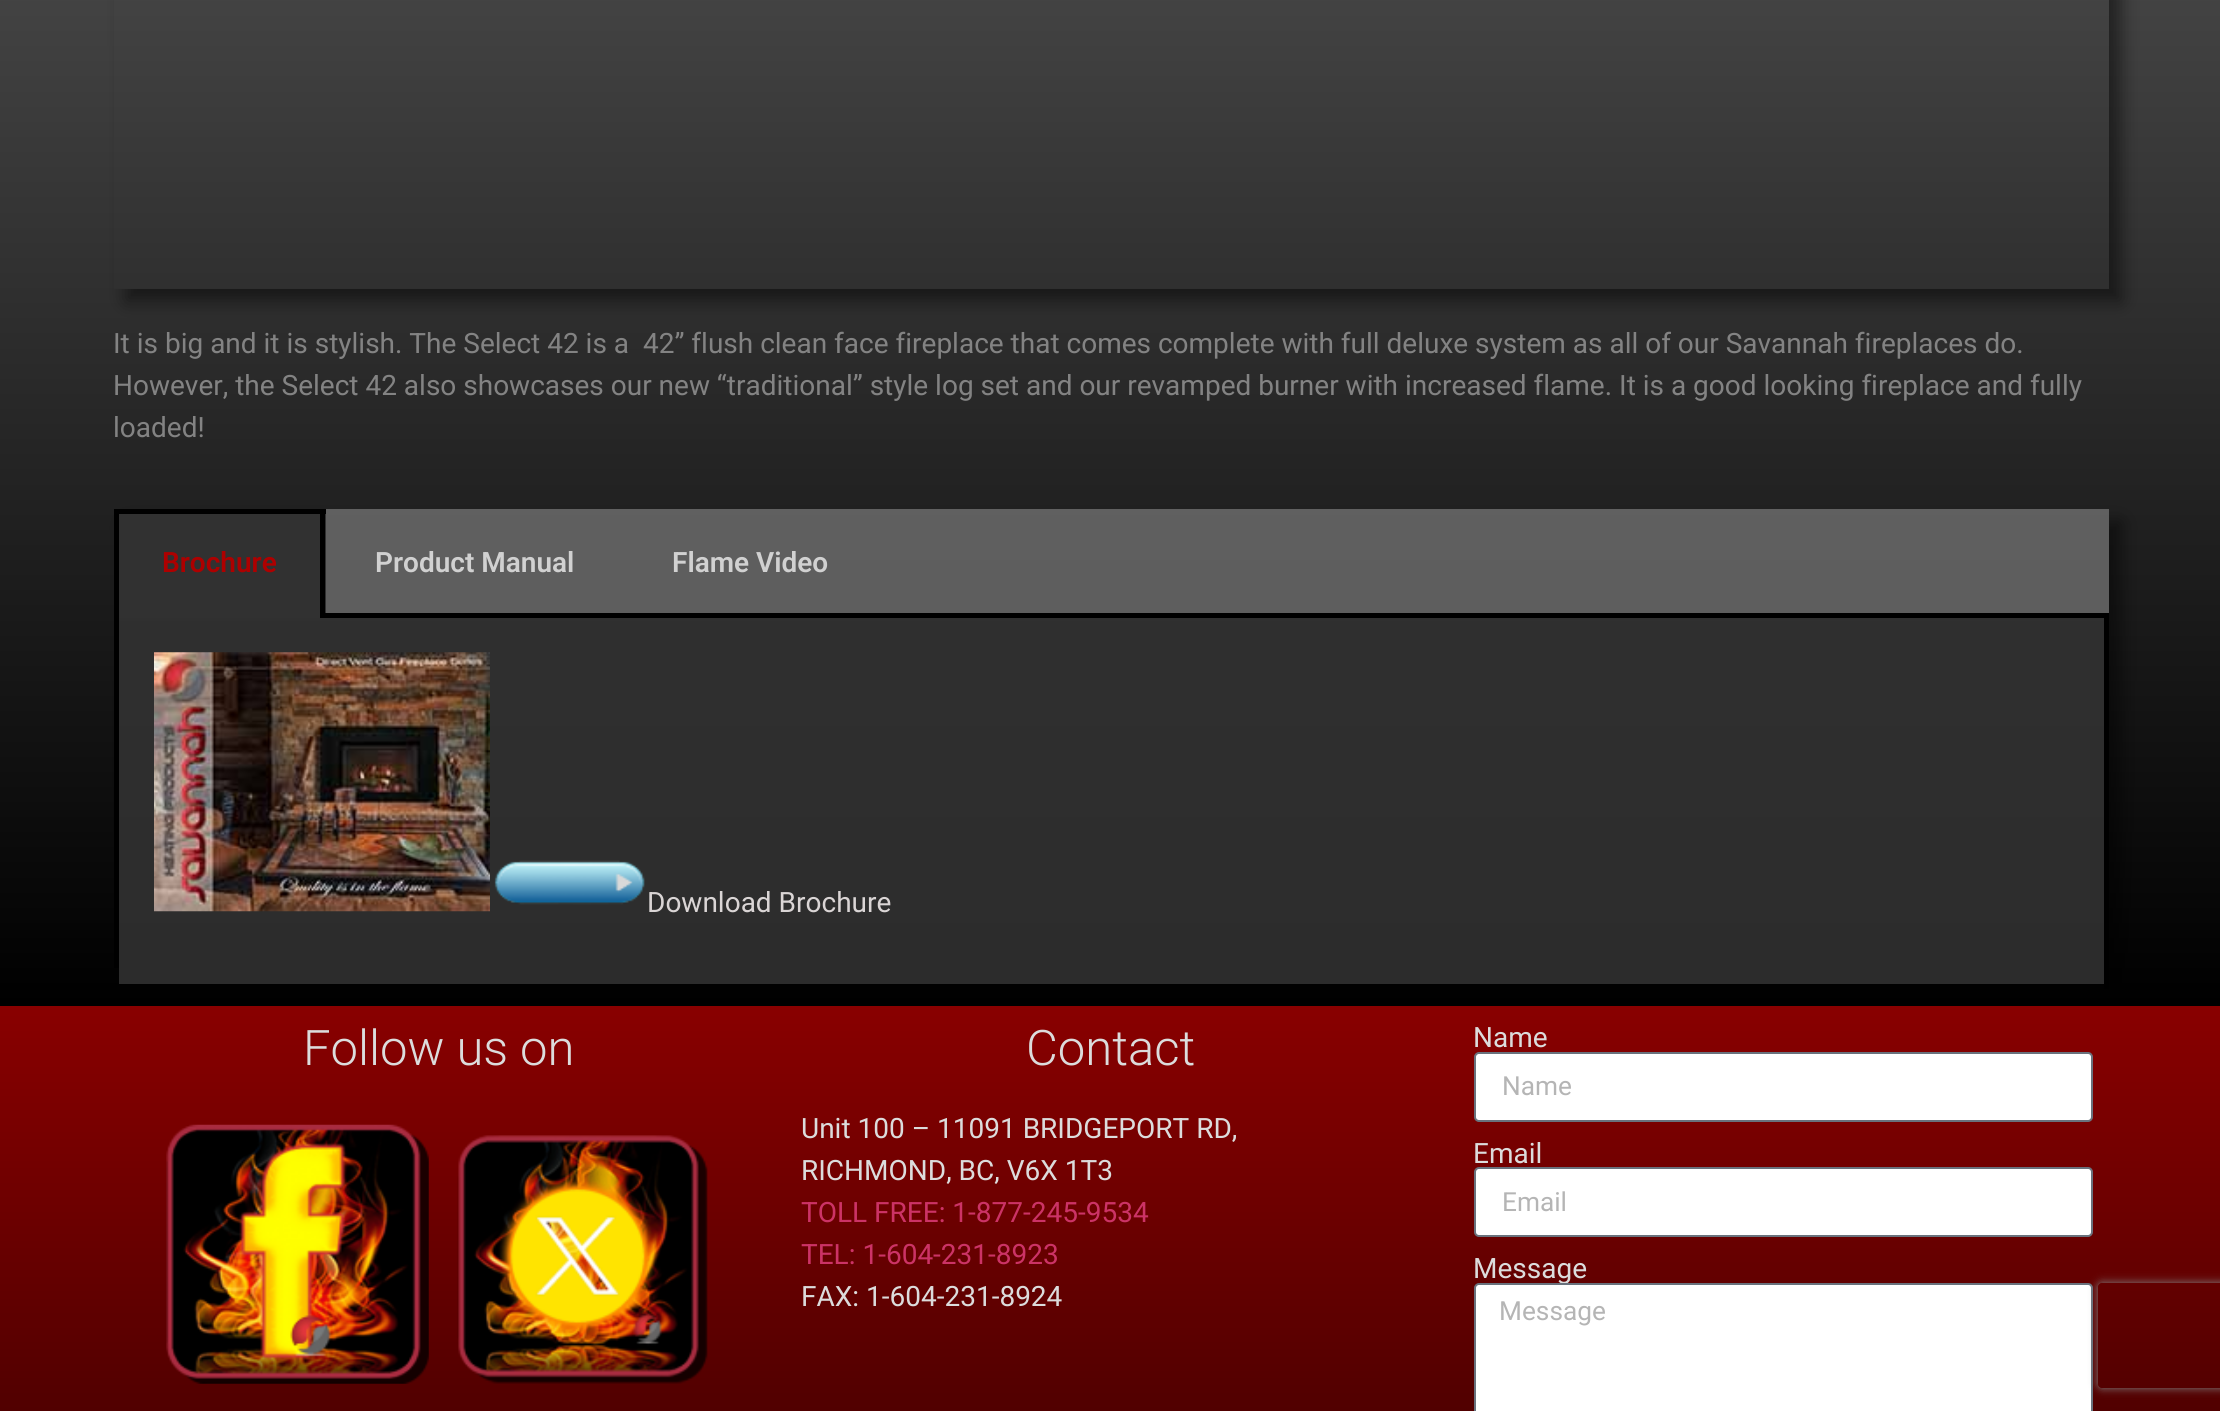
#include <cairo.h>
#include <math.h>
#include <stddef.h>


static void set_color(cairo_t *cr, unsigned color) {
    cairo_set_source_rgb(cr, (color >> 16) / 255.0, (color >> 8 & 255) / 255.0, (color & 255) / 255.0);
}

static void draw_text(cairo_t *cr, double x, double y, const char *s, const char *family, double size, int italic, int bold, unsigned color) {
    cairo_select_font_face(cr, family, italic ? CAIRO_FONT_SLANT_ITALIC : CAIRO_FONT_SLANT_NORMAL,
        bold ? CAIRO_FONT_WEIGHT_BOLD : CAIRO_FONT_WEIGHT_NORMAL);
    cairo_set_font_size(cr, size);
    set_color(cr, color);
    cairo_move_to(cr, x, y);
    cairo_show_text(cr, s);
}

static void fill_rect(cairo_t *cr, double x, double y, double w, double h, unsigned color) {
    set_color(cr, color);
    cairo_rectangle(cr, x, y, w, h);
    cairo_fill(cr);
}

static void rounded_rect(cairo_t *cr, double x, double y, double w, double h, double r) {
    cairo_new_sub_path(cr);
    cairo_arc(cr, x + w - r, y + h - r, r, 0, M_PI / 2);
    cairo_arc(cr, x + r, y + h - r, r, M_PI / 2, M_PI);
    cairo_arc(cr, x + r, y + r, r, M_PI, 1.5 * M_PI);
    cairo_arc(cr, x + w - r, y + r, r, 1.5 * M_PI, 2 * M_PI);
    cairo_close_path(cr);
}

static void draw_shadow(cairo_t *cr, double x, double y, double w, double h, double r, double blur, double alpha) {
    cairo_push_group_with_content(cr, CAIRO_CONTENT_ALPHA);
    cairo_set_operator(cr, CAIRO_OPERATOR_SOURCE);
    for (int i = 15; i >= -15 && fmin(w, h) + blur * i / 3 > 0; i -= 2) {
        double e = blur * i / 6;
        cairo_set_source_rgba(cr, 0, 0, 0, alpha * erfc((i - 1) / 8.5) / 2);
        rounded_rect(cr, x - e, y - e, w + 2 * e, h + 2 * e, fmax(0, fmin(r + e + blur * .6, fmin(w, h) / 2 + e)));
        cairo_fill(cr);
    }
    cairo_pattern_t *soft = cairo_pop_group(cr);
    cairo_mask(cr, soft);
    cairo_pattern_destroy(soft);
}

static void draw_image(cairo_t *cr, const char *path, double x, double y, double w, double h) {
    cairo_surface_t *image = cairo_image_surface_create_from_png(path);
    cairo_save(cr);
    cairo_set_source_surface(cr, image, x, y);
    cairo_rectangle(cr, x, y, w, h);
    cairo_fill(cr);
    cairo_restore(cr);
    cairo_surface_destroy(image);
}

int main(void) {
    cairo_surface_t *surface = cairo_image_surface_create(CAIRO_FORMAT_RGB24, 2220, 1411);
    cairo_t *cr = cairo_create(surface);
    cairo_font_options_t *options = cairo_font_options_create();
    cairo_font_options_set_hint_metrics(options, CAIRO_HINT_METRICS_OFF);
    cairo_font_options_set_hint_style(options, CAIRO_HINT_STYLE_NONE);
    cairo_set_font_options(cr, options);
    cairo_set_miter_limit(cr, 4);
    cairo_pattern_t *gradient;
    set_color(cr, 0xFFFFFF);
    cairo_paint(cr);
    gradient = cairo_pattern_create_linear(1110, -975, 1110, 1006);
    cairo_pattern_add_color_stop_rgba(gradient, 0, 0.514, 0.514, 0.514, 1);
    cairo_pattern_add_color_stop_rgba(gradient, 1, 0, 0, 0, 1);
    cairo_set_source(cr, gradient);
    cairo_pattern_destroy(gradient);
    cairo_rectangle(cr, 0, 0, 2220, 1006);
    cairo_fill(cr);
    cairo_save(cr);
    cairo_set_fill_rule(cr, CAIRO_FILL_RULE_EVEN_ODD);
    cairo_new_path(cr);
    cairo_move_to(cr, 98, 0);
    cairo_line_to(cr, 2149, 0);
    cairo_line_to(cr, 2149, 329);
    cairo_line_to(cr, 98, 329);
    cairo_close_path(cr);
    cairo_move_to(cr, 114, -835);
    cairo_line_to(cr, 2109, -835);
    cairo_line_to(cr, 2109, 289);
    cairo_line_to(cr, 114, 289);
    cairo_close_path(cr);
    cairo_clip(cr);
    set_color(cr, 0x000000);
    draw_shadow(cr, 126, -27, 1995, 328, 0, 9, 0.5);
    cairo_restore(cr);
    draw_text(cr, 113, 353, "It is big and it is stylish. The Select 42 is a  42” flush clean face fireplace that comes complete with full deluxe system as all of our Savannah fireplaces do.", "Roboto", 28, 0, 0, 0x838383);
    draw_text(cr, 113, 395, "However, the Select 42 also showcases our new “traditional” style log set and our revamped burner with increased flame. It is a good looking fireplace and fully", "Roboto", 28, 0, 0, 0x838383);
    draw_text(cr, 113, 437, "loaded!", "Roboto", 28, 0, 0, 0x838383);
    cairo_save(cr);
    cairo_set_fill_rule(cr, CAIRO_FILL_RULE_EVEN_ODD);
    cairo_new_path(cr);
    cairo_move_to(cr, 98, 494);
    cairo_line_to(cr, 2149, 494);
    cairo_line_to(cr, 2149, 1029);
    cairo_line_to(cr, 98, 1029);
    cairo_close_path(cr);
    cairo_move_to(cr, 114, 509);
    cairo_line_to(cr, 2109, 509);
    cairo_line_to(cr, 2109, 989);
    cairo_line_to(cr, 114, 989);
    cairo_close_path(cr);
    cairo_clip(cr);
    set_color(cr, 0x000000);
    draw_shadow(cr, 126, 522, 1995, 479, 0, 9, 0.5);
    cairo_restore(cr);
    cairo_set_source_rgba(cr, 0.478, 0.478, 0.478, 0.71);
    cairo_rectangle(cr, 119, 509, 1990, 475);
    cairo_fill(cr);
    fill_rect(cr, 119, 514, 207, 104, 0x313131);
    fill_rect(cr, 114, 509, 212, 5, 0x000000);
    fill_rect(cr, 320, 509, 5, 109, 0x000000);
    fill_rect(cr, 114, 509, 5, 109, 0x000000);
    draw_text(cr, 162, 572, "Brochure", "Roboto SemiBold", 28, 0, 0, 0xAE0000);
    fill_rect(cr, 320, 613, 1789, 5, 0x000000);
    draw_text(cr, 375, 572, "Product Manual", "Roboto SemiBold", 28, 0, 0, 0xD1D1D1);
    draw_text(cr, 672, 572, "Flame Video", "Roboto SemiBold", 28, 0, 0, 0xD1D1D1);
    cairo_set_source_rgba(cr, 0, 0, 0, 0.49);
    cairo_rectangle(cr, 119, 618, 1985, 366);
    cairo_fill(cr);
    fill_rect(cr, 2104, 618, 5, 371, 0x000000);
    fill_rect(cr, 114, 618, 5, 350, 0x000000);
    draw_image(cr, "assets/img1.png", 154, 652, 336, 260);
    draw_image(cr, "assets/img2.png", 494, 860, 151, 45);
    draw_text(cr, 647, 912, "Download Brochure", "Roboto", 28, 0, 0, 0xDAD5D5);
    gradient = cairo_pattern_create_linear(1110, 1006, 1110, 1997);
    cairo_pattern_add_color_stop_rgba(gradient, 0, 0.537, 0, 0, 1);
    cairo_pattern_add_color_stop_rgba(gradient, 1, 0, 0, 0, 1);
    cairo_set_source(cr, gradient);
    cairo_pattern_destroy(gradient);
    cairo_rectangle(cr, 0, 1006, 2220, 405);
    cairo_fill(cr);
    draw_text(cr, 303, 1065, "Follow us on", "Roboto Light", 49, 0, 0, 0xDCDCDC);
    draw_image(cr, "assets/img3.png", 166, 1124, 263, 260);
    draw_image(cr, "assets/img4.png", 457, 1135, 251, 249);
    draw_text(cr, 1026, 1065, "Contact", "Roboto Light", 49, 0, 0, 0xDCDCDC);
    draw_text(cr, 801, 1138, "Unit 100 – 11091 BRIDGEPORT RD,", "Roboto", 28, 0, 0, 0xDCDCDC);
    draw_text(cr, 801, 1180, "RICHMOND, BC, V6X 1T3", "Roboto", 28, 0, 0, 0xDCDCDC);
    draw_text(cr, 801, 1222, "TOLL FREE: 1-877-245-9534", "Roboto", 28, 0, 0, 0xCC3366);
    draw_text(cr, 801, 1264, "TEL: 1-604-231-8923", "Roboto", 28, 0, 0, 0xCC3366);
    draw_text(cr, 801, 1306, "FAX: 1-604-231-8924", "Roboto", 28, 0, 0, 0xDCDCDC);
    draw_text(cr, 1473, 1047, "Name", "Roboto", 28, 0, 0, 0xDCDCDC);
    set_color(cr, 0xFFFFFF);
    rounded_rect(cr, 1475, 1053, 617, 68, 4);
    cairo_fill_preserve(cr);
    set_color(cr, 0x69727D);
    cairo_stroke(cr);
    draw_text(cr, 1502, 1095, "Name", "Roboto", 26.25, 0, 0, 0xB5B5B5);
    draw_text(cr, 1473, 1163, "Email", "Roboto", 28, 0, 0, 0xDCDCDC);
    set_color(cr, 0xFFFFFF);
    rounded_rect(cr, 1475, 1168, 617, 68, 4);
    cairo_fill_preserve(cr);
    set_color(cr, 0x69727D);
    cairo_stroke(cr);
    draw_text(cr, 1502, 1211, "Email", "Roboto", 26.25, 0, 0, 0xB5B5B5);
    draw_text(cr, 1473, 1278, "Message", "Roboto", 28, 0, 0, 0xDCDCDC);
    set_color(cr, 0xFFFFFF);
    rounded_rect(cr, 1475, 1284, 617, 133, 4);
    cairo_fill_preserve(cr);
    set_color(cr, 0x69727D);
    cairo_stroke(cr);
    draw_text(cr, 1499, 1320, "Message", "Roboto", 26.25, 0, 0, 0xB5B5B5);
    cairo_save(cr);
    cairo_set_fill_rule(cr, CAIRO_FILL_RULE_EVEN_ODD);
    cairo_new_path(cr);
    cairo_move_to(cr, 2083, 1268);
    cairo_line_to(cr, 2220, 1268);
    cairo_line_to(cr, 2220, 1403);
    cairo_line_to(cr, 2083, 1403);
    cairo_close_path(cr);
    cairo_move_to(cr, 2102, 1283);
    cairo_line_to(cr, 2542, 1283);
    cairo_curve_to(cr, 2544, 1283, 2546, 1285, 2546, 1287);
    cairo_line_to(cr, 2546, 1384);
    cairo_curve_to(cr, 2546, 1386, 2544, 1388, 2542, 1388);
    cairo_line_to(cr, 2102, 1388);
    cairo_curve_to(cr, 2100, 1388, 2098, 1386, 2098, 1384);
    cairo_line_to(cr, 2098, 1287);
    cairo_curve_to(cr, 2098, 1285, 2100, 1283, 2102, 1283);
    cairo_close_path(cr);
    cairo_clip(cr);
    set_color(cr, 0x808080);
    draw_shadow(cr, 2098, 1283, 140, 105, 4, 4.5, 1);
    cairo_restore(cr);
    cairo_surface_write_to_png(surface, "output.png");
    cairo_font_options_destroy(options);
    cairo_destroy(cr);
    cairo_surface_destroy(surface);
    return 0;
}
